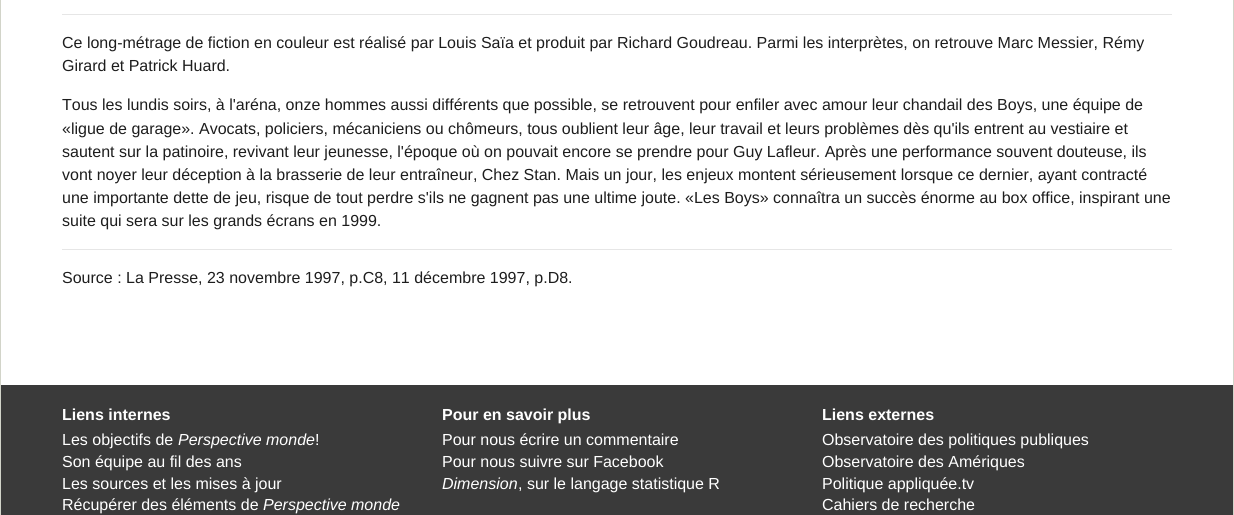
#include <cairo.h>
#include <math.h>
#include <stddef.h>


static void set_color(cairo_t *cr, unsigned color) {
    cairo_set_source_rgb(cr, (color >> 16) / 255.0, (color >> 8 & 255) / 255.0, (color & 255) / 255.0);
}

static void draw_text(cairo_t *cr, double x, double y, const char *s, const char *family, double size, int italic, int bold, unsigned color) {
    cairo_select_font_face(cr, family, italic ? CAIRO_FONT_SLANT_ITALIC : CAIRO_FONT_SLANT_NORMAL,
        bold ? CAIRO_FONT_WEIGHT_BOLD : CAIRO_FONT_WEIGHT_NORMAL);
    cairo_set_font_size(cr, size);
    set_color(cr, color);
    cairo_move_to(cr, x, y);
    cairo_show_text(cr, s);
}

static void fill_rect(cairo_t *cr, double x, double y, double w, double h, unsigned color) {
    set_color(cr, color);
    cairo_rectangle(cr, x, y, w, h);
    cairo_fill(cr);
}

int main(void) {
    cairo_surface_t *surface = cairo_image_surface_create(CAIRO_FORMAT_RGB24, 1234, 515);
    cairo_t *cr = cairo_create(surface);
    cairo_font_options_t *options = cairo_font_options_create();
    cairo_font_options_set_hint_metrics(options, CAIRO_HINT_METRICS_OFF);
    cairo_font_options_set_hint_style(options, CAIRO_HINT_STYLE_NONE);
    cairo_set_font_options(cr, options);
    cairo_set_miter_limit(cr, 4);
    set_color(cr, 0xFFFFFF);
    cairo_paint(cr);
    fill_rect(cr, 1233, 0, 1, 515, 0xD2D4C9);
    fill_rect(cr, 0, 0, 1, 515, 0xD2D4C9);
    fill_rect(cr, 62, 14, 1110, 1, 0xE6E6E6);
    draw_text(cr, 62, 48, "Ce long-métrage de fiction en couleur est réalisé par Louis Saïa et produit par Richard Goudreau. Parmi les interprètes, on retrouve Marc Messier, Rémy", "Liberation Sans", 16, 0, 0, 0x1D1D1D);
    draw_text(cr, 62, 71, "Girard et Patrick Huard.", "Liberation Sans", 16, 0, 0, 0x1D1D1D);
    draw_text(cr, 62, 110, "Tous les lundis soirs, à l'aréna, onze hommes aussi différents que possible, se retrouvent pour enfiler avec amour leur chandail des Boys, une équipe de", "Liberation Sans", 16, 0, 0, 0x1D1D1D);
    draw_text(cr, 62, 134, "«ligue de garage». Avocats, policiers, mécaniciens ou chômeurs, tous oublient leur âge, leur travail et leurs problèmes dès qu'ils entrent au vestiaire et", "Liberation Sans", 16, 0, 0, 0x1D1D1D);
    draw_text(cr, 62, 157, "sautent sur la patinoire, revivant leur jeunesse, l'époque où on pouvait encore se prendre pour Guy Lafleur. Après une performance souvent douteuse, ils", "Liberation Sans", 16, 0, 0, 0x1D1D1D);
    draw_text(cr, 62, 180, "vont noyer leur déception à la brasserie de leur entraîneur, Chez Stan. Mais un jour, les enjeux montent sérieusement lorsque ce dernier, ayant contracté", "Liberation Sans", 16, 0, 0, 0x1D1D1D);
    draw_text(cr, 62, 203, "une importante dette de jeu, risque de tout perdre s'ils ne gagnent pas une ultime joute. «Les Boys» connaîtra un succès énorme au box office, inspirant une", "Liberation Sans", 16, 0, 0, 0x1D1D1D);
    draw_text(cr, 62, 226, "suite qui sera sur les grands écrans en 1999.", "Liberation Sans", 16, 0, 0, 0x1D1D1D);
    fill_rect(cr, 62, 249, 1110, 1, 0xE6E6E6);
    draw_text(cr, 62, 283, "Source : La Presse, 23 novembre 1997, p.C8, 11 décembre 1997, p.D8.", "Liberation Sans", 16, 0, 0, 0x1D1D1D);
    fill_rect(cr, 1, 385, 1232, 130, 0x3A3A3A);
    draw_text(cr, 62, 420, "Liens internes", "Liberation Sans", 16, 0, 1, 0xFFFFFF);
    draw_text(cr, 62, 445, "Les objectifs de", "Liberation Sans", 16, 0, 0, 0xFFFFFF);
    draw_text(cr, 178, 445, "Perspective monde", "Liberation Sans", 16, 1, 0, 0xFFFFFF);
    draw_text(cr, 315, 445, "!", "Liberation Sans", 16, 0, 0, 0xFFFFFF);
    draw_text(cr, 62, 467, "Son équipe au fil des ans", "Liberation Sans", 16, 0, 0, 0xFFFFFF);
    draw_text(cr, 62, 489, "Les sources et les mises à jour", "Liberation Sans", 16, 0, 0, 0xFFFFFF);
    draw_text(cr, 62, 510, "Récupérer des éléments de", "Liberation Sans", 16, 0, 0, 0xFFFFFF);
    draw_text(cr, 263, 510, "Perspective monde", "Liberation Sans", 16, 1, 0, 0xFFFFFF);
    draw_text(cr, 442, 420, "Pour en savoir plus", "Liberation Sans", 16, 0, 1, 0xFFFFFF);
    draw_text(cr, 442, 445, "Pour nous écrire un commentaire", "Liberation Sans", 16, 0, 0, 0xFFFFFF);
    draw_text(cr, 442, 467, "Pour nous suivre sur Facebook", "Liberation Sans", 16, 0, 0, 0xFFFFFF);
    draw_text(cr, 442, 489, "Dimension", "Liberation Sans", 16, 1, 0, 0xFFFFFF);
    draw_text(cr, 518, 489, ", sur le langage statistique R", "Liberation Sans", 16, 0, 0, 0xFFFFFF);
    draw_text(cr, 822, 420, "Liens externes", "Liberation Sans", 16, 0, 1, 0xFFFFFF);
    draw_text(cr, 822, 445, "Observatoire des politiques publiques", "Liberation Sans", 16, 0, 0, 0xFFFFFF);
    draw_text(cr, 822, 467, "Observatoire des Amériques", "Liberation Sans", 16, 0, 0, 0xFFFFFF);
    draw_text(cr, 822, 489, "Politique appliquée.tv", "Liberation Sans", 16, 0, 0, 0xFFFFFF);
    draw_text(cr, 822, 510, "Cahiers de recherche", "Liberation Sans", 16, 0, 0, 0xFFFFFF);
    cairo_surface_write_to_png(surface, "output.png");
    cairo_font_options_destroy(options);
    cairo_destroy(cr);
    cairo_surface_destroy(surface);
    return 0;
}
